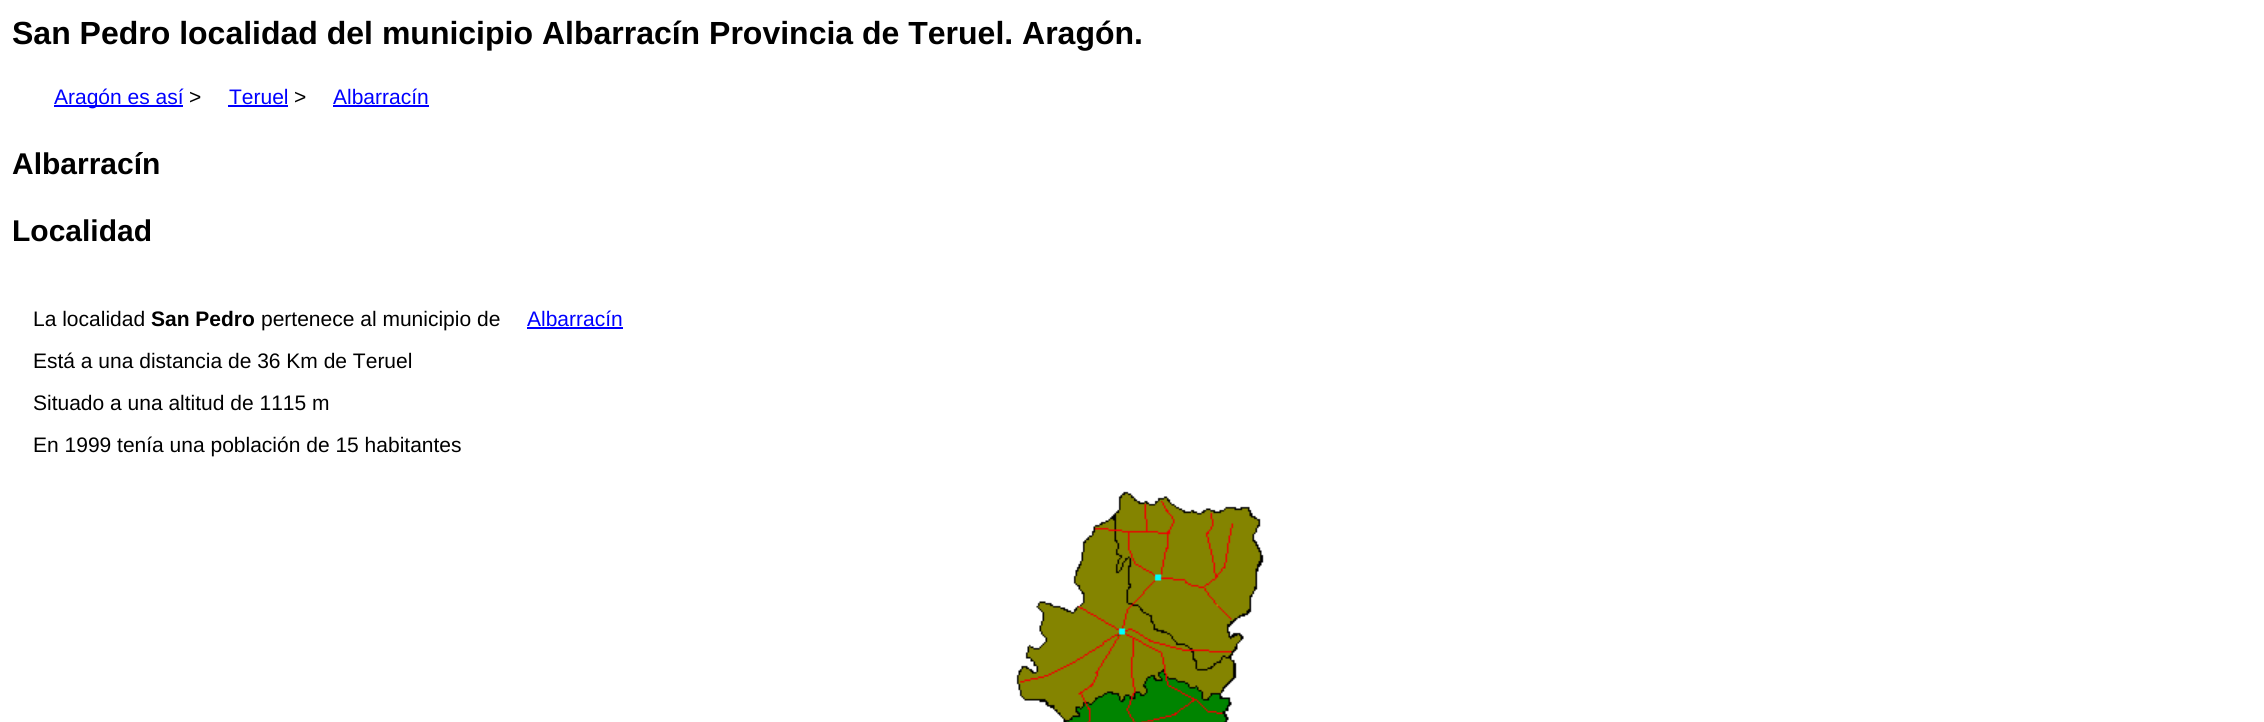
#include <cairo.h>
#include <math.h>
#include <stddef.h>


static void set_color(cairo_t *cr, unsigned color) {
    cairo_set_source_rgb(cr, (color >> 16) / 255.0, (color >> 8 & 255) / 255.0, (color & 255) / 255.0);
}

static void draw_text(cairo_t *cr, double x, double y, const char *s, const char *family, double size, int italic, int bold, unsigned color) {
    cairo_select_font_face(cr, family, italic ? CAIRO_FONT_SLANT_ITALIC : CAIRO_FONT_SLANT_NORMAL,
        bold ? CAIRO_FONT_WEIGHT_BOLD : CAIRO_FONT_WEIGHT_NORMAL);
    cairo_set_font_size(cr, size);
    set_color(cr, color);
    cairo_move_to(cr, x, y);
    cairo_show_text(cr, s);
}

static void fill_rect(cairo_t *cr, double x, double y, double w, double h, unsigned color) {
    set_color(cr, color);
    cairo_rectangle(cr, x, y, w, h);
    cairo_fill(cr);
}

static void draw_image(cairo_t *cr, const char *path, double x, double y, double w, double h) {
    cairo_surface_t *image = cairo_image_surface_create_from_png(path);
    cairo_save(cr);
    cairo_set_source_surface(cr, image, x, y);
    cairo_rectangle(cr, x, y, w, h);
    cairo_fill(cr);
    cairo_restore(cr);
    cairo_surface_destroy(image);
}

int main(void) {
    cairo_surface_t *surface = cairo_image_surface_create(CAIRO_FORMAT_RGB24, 2264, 722);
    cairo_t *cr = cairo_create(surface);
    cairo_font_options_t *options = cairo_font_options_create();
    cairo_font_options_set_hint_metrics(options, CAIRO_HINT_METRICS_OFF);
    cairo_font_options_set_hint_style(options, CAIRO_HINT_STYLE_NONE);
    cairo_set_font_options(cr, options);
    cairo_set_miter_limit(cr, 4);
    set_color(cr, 0xFFFFFF);
    cairo_paint(cr);
    draw_text(cr, 12, 44, "San Pedro localidad del municipio Albarracín Provincia de Teruel. Aragón.", "Liberation Sans", 32, 0, 1, 0x000000);
    fill_rect(cr, 54, 105, 129, 2, 0x0000FF);
    draw_text(cr, 54, 104, "Aragón es así", "Liberation Sans", 21, 0, 0, 0x0000FF);
    draw_text(cr, 189, 104, ">", "Liberation Sans", 21, 0, 0, 0x000000);
    draw_text(cr, 229, 104, "Teruel", "Liberation Sans", 21, 0, 0, 0x0000FF);
    fill_rect(cr, 228, 105, 60, 2, 0x0000FF);
    draw_text(cr, 294, 104, ">", "Liberation Sans", 21, 0, 0, 0x000000);
    draw_text(cr, 333, 104, "Albarracín", "Liberation Sans", 21, 0, 0, 0x0000FF);
    fill_rect(cr, 333, 105, 96, 2, 0x0000FF);
    draw_text(cr, 12, 174, "Albarracín", "Liberation Sans", 30, 0, 1, 0x000000);
    draw_text(cr, 12, 241, "Localidad", "Liberation Sans", 30, 0, 1, 0x000000);
    draw_text(cr, 33, 326, "La localidad", "Liberation Sans", 21, 0, 0, 0x000000);
    draw_text(cr, 151, 326, "San Pedro", "Liberation Sans", 21, 0, 1, 0x000000);
    draw_text(cr, 261, 326, "pertenece al municipio de", "Liberation Sans", 21, 0, 0, 0x000000);
    draw_text(cr, 527, 326, "Albarracín", "Liberation Sans", 21, 0, 0, 0x0000FF);
    fill_rect(cr, 527, 327, 96, 2, 0x0000FF);
    draw_text(cr, 33, 368, "Está a una distancia de 36 Km de Teruel", "Liberation Sans", 21, 0, 0, 0x000000);
    draw_text(cr, 33, 410, "Situado a una altitud de 1115 m", "Liberation Sans", 21, 0, 0, 0x000000);
    draw_text(cr, 33, 452, "En 1999 tenía una población de 15 habitantes", "Liberation Sans", 21, 0, 0, 0x000000);
    draw_image(cr, "assets/img1.png", 1016, 491, 248, 231);
    cairo_surface_write_to_png(surface, "output.png");
    cairo_font_options_destroy(options);
    cairo_destroy(cr);
    cairo_surface_destroy(surface);
    return 0;
}
